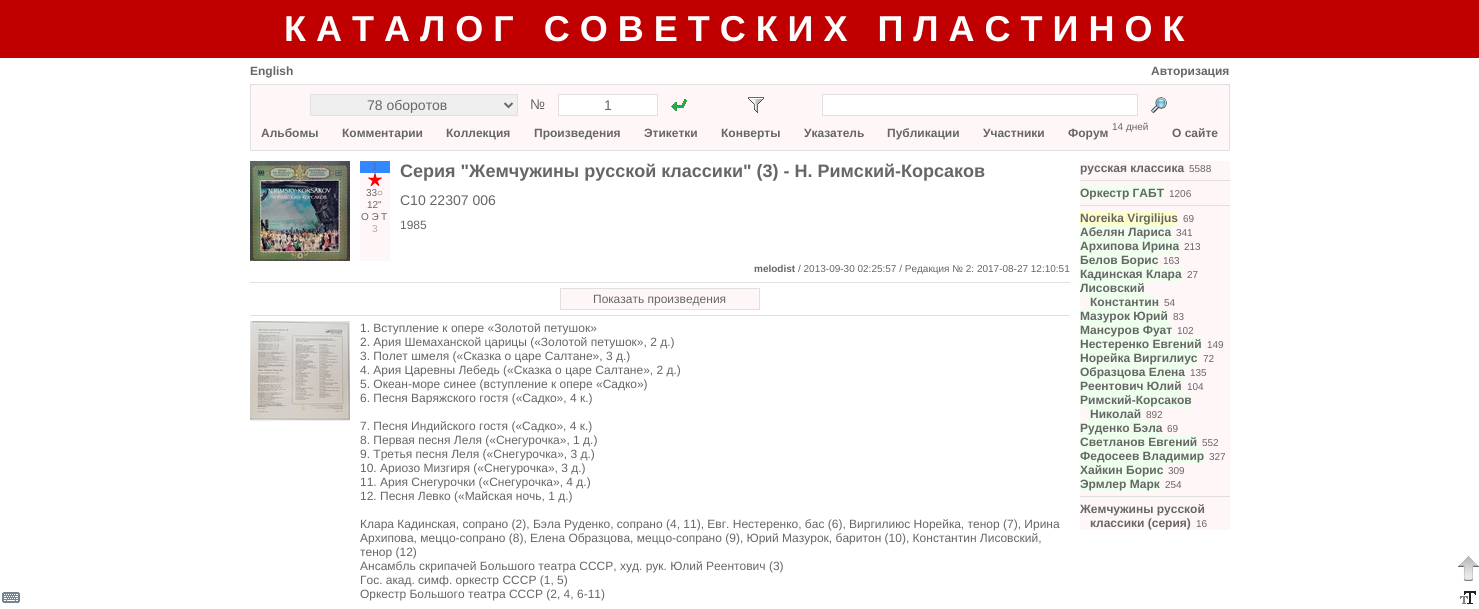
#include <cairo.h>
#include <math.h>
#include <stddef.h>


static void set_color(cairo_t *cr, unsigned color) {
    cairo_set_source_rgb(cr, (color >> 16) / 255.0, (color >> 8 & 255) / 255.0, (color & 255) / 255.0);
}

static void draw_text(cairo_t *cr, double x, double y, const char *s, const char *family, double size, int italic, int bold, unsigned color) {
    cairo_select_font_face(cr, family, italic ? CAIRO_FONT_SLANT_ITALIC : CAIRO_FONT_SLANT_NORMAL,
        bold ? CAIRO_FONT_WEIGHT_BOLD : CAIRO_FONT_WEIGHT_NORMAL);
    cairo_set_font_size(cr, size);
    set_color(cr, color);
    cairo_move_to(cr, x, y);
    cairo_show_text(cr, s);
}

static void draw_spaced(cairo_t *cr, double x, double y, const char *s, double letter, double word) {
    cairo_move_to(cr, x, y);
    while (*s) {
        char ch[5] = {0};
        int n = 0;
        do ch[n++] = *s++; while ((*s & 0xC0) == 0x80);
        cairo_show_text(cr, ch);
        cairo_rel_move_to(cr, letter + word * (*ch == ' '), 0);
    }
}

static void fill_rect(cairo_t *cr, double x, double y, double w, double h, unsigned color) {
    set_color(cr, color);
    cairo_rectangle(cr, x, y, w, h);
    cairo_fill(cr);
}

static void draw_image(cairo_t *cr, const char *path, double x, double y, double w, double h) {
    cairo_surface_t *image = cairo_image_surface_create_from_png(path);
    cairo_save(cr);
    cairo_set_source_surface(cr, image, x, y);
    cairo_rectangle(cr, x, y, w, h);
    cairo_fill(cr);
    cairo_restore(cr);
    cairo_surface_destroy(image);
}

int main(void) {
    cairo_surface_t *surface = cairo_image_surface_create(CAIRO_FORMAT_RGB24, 1479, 609);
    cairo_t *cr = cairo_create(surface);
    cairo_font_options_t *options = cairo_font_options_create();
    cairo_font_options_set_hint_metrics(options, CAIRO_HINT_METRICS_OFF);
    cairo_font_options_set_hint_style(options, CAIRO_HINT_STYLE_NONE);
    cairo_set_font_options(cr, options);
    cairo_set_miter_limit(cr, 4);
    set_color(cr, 0xFFFFFF);
    cairo_paint(cr);
    fill_rect(cr, 0, 0, 1479, 58, 0xC00000);
    cairo_select_font_face(cr, "Liberation Sans", CAIRO_FONT_SLANT_NORMAL, CAIRO_FONT_WEIGHT_BOLD);
    cairo_set_font_size(cr, 36);
    set_color(cr, 0xFFFFFF);
    draw_spaced(cr, 284, 41, "КАТАЛОГ СОВЕТСКИХ ПЛАСТИНОК", 10, 0);
    draw_text(cr, 250, 75, "English", "Liberation Sans", 12, 0, 1, 0x666666);
    draw_text(cr, 1151, 75, "Авторизация", "Liberation Sans", 12, 0, 1, 0x666666);
    set_color(cr, 0xFFF7F7);
    cairo_rectangle(cr, 250.5, 84.5, 979, 66);
    cairo_fill_preserve(cr);
    set_color(cr, 0xE0E0E0);
    cairo_set_line_width(cr, 1);
    cairo_stroke(cr);
    set_color(cr, 0xEFEFEF);
    cairo_rectangle(cr, 310.5, 94.5, 207, 21);
    cairo_fill_preserve(cr);
    set_color(cr, 0xE0E0E0);
    cairo_stroke(cr);
    cairo_new_path(cr);
    cairo_move_to(cr, 504.5, 103);
    cairo_line_to(cr, 508.5, 107);
    cairo_line_to(cr, 512.5, 103);
    set_color(cr, 0x666666);
    cairo_set_line_width(cr, 2);
    cairo_stroke(cr);
    draw_text(cr, 367, 110, "78 оборотов", "Liberation Sans", 14, 0, 0, 0x666666);
    draw_text(cr, 530, 109, "№", "Liberation Sans", 14, 0, 0, 0x666666);
    set_color(cr, 0xFFFFFF);
    cairo_rectangle(cr, 558.5, 94.5, 99, 21);
    cairo_fill_preserve(cr);
    set_color(cr, 0xE0E0E0);
    cairo_set_line_width(cr, 1);
    cairo_stroke(cr);
    draw_text(cr, 604, 110, "1", "Liberation Sans", 14, 0, 0, 0x666666);
    draw_image(cr, "assets/img1.png", 671, 99, 16, 12);
    draw_image(cr, "assets/img2.png", 748, 97, 16, 16);
    set_color(cr, 0xFFFFFF);
    cairo_rectangle(cr, 822.5, 94.5, 315, 21);
    cairo_fill_preserve(cr);
    set_color(cr, 0xE0E0E0);
    cairo_stroke(cr);
    draw_image(cr, "assets/img3.png", 1151, 97, 16, 16);
    draw_text(cr, 1112, 130, "14 дней", "Liberation Sans", 10, 0, 0, 0x666666);
    draw_text(cr, 261, 137, "Альбомы", "Liberation Sans", 12, 0, 1, 0x666666);
    draw_text(cr, 342, 137, "Комментарии", "Liberation Sans", 12, 0, 1, 0x666666);
    draw_text(cr, 446, 137, "Коллекция", "Liberation Sans", 12, 0, 1, 0x666666);
    draw_text(cr, 534, 137, "Произведения", "Liberation Sans", 12, 0, 1, 0x666666);
    draw_text(cr, 644, 137, "Этикетки", "Liberation Sans", 12, 0, 1, 0x666666);
    draw_text(cr, 721, 137, "Конверты", "Liberation Sans", 12, 0, 1, 0x666666);
    draw_text(cr, 804, 137, "Указатель", "Liberation Sans", 12, 0, 1, 0x666666);
    draw_text(cr, 887, 137, "Публикации", "Liberation Sans", 12, 0, 1, 0x666666);
    draw_text(cr, 983, 137, "Участники", "Liberation Sans", 12, 0, 1, 0x666666);
    draw_text(cr, 1068, 137, "Форум", "Liberation Sans", 12, 0, 1, 0x666666);
    draw_text(cr, 1172, 137, "О сайте", "Liberation Sans", 12, 0, 1, 0x666666);
    draw_image(cr, "assets/img4.png", 250, 161, 100, 100);
    fill_rect(cr, 360, 173, 30, 88, 0xFFF7F7);
    fill_rect(cr, 360, 161, 30, 12, 0x3388FF);
    draw_text(cr, 372, 170, "1", "Liberation Sans", 10, 0, 0, 0x666666);
    draw_image(cr, "assets/img5.png", 368, 173, 14, 13);
    draw_text(cr, 366, 196, "33○", "Liberation Sans", 10, 0, 0, 0x666666);
    draw_text(cr, 367, 208, "12\"", "Liberation Sans", 10, 0, 0, 0x666666);
    draw_text(cr, 361, 220, "О Э", "Liberation Sans", 10, 0, 0, 0x666666);
    draw_text(cr, 381, 220, "Т", "Liberation Sans", 10, 0, 0, 0x666666);
    draw_text(cr, 372, 232, "3", "Liberation Sans", 10, 0, 0, 0xAAAAAA);
    draw_text(cr, 400, 177, "Серия \"Жемчужины русской классики\" (3) - Н. Римский-Корсаков", "Liberation Sans", 18, 0, 1, 0x666666);
    draw_text(cr, 400, 205, "С10 22307 006", "Liberation Sans", 14, 0, 0, 0x666666);
    draw_text(cr, 400, 229, "1985", "Liberation Sans", 12, 0, 0, 0x666666);
    draw_text(cr, 754, 272, "melodist", "Liberation Sans", 10, 0, 1, 0x666666);
    draw_text(cr, 798, 272, "/ 2013-09-30 02:25:57 / Редакция № 2: 2017-08-27 12:10:51", "Liberation Sans", 10, 0, 0, 0x666666);
    fill_rect(cr, 250, 282, 820, 1, 0xE0E0E0);
    set_color(cr, 0xFFF7F7);
    cairo_rectangle(cr, 560.5, 288.5, 199, 21);
    cairo_fill_preserve(cr);
    set_color(cr, 0xE0E0E0);
    cairo_stroke(cr);
    draw_text(cr, 593, 303, "Показать произведения", "Liberation Sans", 12, 0, 0, 0x666666);
    fill_rect(cr, 250, 315, 820, 1, 0xE0E0E0);
    draw_image(cr, "assets/img6.png", 250, 321, 100, 100);
    draw_text(cr, 360, 332, "1. Вступление к опере «Золотой петушок»", "Liberation Sans", 12, 0, 0, 0x666666);
    draw_text(cr, 360, 346, "2. Ария Шемаханской царицы («Золотой петушок», 2 д.)", "Liberation Sans", 12, 0, 0, 0x666666);
    draw_text(cr, 360, 360, "3. Полет шмеля («Сказка о царе Салтане», 3 д.)", "Liberation Sans", 12, 0, 0, 0x666666);
    draw_text(cr, 360, 374, "4. Ария Царевны Лебедь («Сказка о царе Салтане», 2 д.)", "Liberation Sans", 12, 0, 0, 0x666666);
    draw_text(cr, 360, 388, "5. Океан-море синее (вступление к опере «Садко»)", "Liberation Sans", 12, 0, 0, 0x666666);
    draw_text(cr, 360, 402, "6. Песня Варяжского гостя («Садко», 4 к.)", "Liberation Sans", 12, 0, 0, 0x666666);
    draw_text(cr, 360, 430, "7. Песня Индийского гостя («Садко», 4 к.)", "Liberation Sans", 12, 0, 0, 0x666666);
    draw_text(cr, 360, 444, "8. Первая песня Леля («Снегурочка», 1 д.)", "Liberation Sans", 12, 0, 0, 0x666666);
    draw_text(cr, 360, 458, "9. Третья песня Леля («Снегурочка», 3 д.)", "Liberation Sans", 12, 0, 0, 0x666666);
    draw_text(cr, 360, 472, "10. Ариозо Мизгиря («Снегурочка», 3 д.)", "Liberation Sans", 12, 0, 0, 0x666666);
    draw_text(cr, 360, 486, "11. Ария Снегурочки («Снегурочка», 4 д.)", "Liberation Sans", 12, 0, 0, 0x666666);
    draw_text(cr, 360, 500, "12. Песня Левко («Майская ночь, 1 д.)", "Liberation Sans", 12, 0, 0, 0x666666);
    draw_text(cr, 360, 528, "Клара Кадинская, сопрано (2), Бэла Руденко, сопрано (4, 11), Евг. Нестеренко, бас (6), Виргилиюс Норейка, тенор (7), Ирина", "Liberation Sans", 12, 0, 0, 0x666666);
    draw_text(cr, 360, 542, "Архипова, меццо-сопрано (8), Елена Образцова, меццо-сопрано (9), Юрий Мазурок, баритон (10), Константин Лисовский,", "Liberation Sans", 12, 0, 0, 0x666666);
    draw_text(cr, 360, 556, "тенор (12)", "Liberation Sans", 12, 0, 0, 0x666666);
    draw_text(cr, 360, 570, "Ансамбль скрипачей Большого театра СССР, худ. рук. Юлий Реентович (3)", "Liberation Sans", 12, 0, 0, 0x666666);
    draw_text(cr, 360, 584, "Гос. акад. симф. оркестр СССР (1, 5)", "Liberation Sans", 12, 0, 0, 0x666666);
    draw_text(cr, 360, 598, "Оркестр Большого театра СССР (2, 4, 6-11)", "Liberation Sans", 12, 0, 0, 0x666666);
    fill_rect(cr, 1080, 161, 150, 369, 0xFFF7F7);
    draw_text(cr, 1080, 172, "русская классика", "Liberation Sans", 12, 0, 1, 0x666666);
    draw_text(cr, 1189, 172, "5588", "Liberation Sans", 10, 0, 0, 0x666666);
    fill_rect(cr, 1080, 180, 150, 1, 0xE0E0E0);
    fill_rect(cr, 1080, 186, 83, 14, 0xEEFFEE);
    draw_text(cr, 1080, 197, "Оркестр ГАБТ", "Liberation Sans", 12, 0, 1, 0x666666);
    draw_text(cr, 1169, 197, "1206", "Liberation Sans", 10, 0, 0, 0x666666);
    fill_rect(cr, 1080, 205, 150, 1, 0xE0E0E0);
    fill_rect(cr, 1080, 211, 98, 14, 0xFFFFCC);
    draw_text(cr, 1080, 222, "Noreika Virgilijus", "Liberation Sans", 12, 0, 1, 0x666666);
    draw_text(cr, 1183, 222, "69", "Liberation Sans", 10, 0, 0, 0x666666);
    fill_rect(cr, 1080, 225, 91, 14, 0xEEFFEE);
    draw_text(cr, 1080, 236, "Абелян Лариса", "Liberation Sans", 12, 0, 1, 0x666666);
    draw_text(cr, 1176, 236, "341", "Liberation Sans", 10, 0, 0, 0x666666);
    fill_rect(cr, 1080, 239, 99, 14, 0xEEFFEE);
    draw_text(cr, 1080, 250, "Архипова Ирина", "Liberation Sans", 12, 0, 1, 0x666666);
    draw_text(cr, 1184, 250, "213", "Liberation Sans", 10, 0, 0, 0x666666);
    fill_rect(cr, 1080, 253, 78, 14, 0xEEFFEE);
    draw_text(cr, 1080, 264, "Белов Борис", "Liberation Sans", 12, 0, 1, 0x666666);
    draw_text(cr, 1163, 264, "163", "Liberation Sans", 10, 0, 0, 0x666666);
    fill_rect(cr, 1080, 267, 101, 14, 0xEEFFEE);
    draw_text(cr, 1080, 278, "Кадинская Клара", "Liberation Sans", 12, 0, 1, 0x666666);
    draw_text(cr, 1187, 278, "27", "Liberation Sans", 10, 0, 0, 0x666666);
    fill_rect(cr, 1080, 281, 64, 14, 0xEEFFEE);
    draw_text(cr, 1080, 292, "Лисовский", "Liberation Sans", 12, 0, 1, 0x666666);
    fill_rect(cr, 1090, 295, 68, 14, 0xEEFFEE);
    draw_text(cr, 1090, 306, "Константин", "Liberation Sans", 12, 0, 1, 0x666666);
    draw_text(cr, 1164, 306, "54", "Liberation Sans", 10, 0, 0, 0x666666);
    fill_rect(cr, 1080, 309, 87, 14, 0xEEFFEE);
    draw_text(cr, 1080, 320, "Мазурок Юрий", "Liberation Sans", 12, 0, 1, 0x666666);
    draw_text(cr, 1173, 320, "83", "Liberation Sans", 10, 0, 0, 0x666666);
    fill_rect(cr, 1080, 323, 92, 14, 0xEEFFEE);
    draw_text(cr, 1080, 334, "Мансуров Фуат", "Liberation Sans", 12, 0, 1, 0x666666);
    draw_text(cr, 1177, 334, "102", "Liberation Sans", 10, 0, 0, 0x666666);
    fill_rect(cr, 1080, 337, 121, 14, 0xEEFFEE);
    draw_text(cr, 1080, 348, "Нестеренко Евгений", "Liberation Sans", 12, 0, 1, 0x666666);
    draw_text(cr, 1207, 348, "149", "Liberation Sans", 10, 0, 0, 0x666666);
    fill_rect(cr, 1080, 351, 117, 14, 0xEEFFEE);
    draw_text(cr, 1080, 362, "Норейка Виргилиус", "Liberation Sans", 12, 0, 1, 0x666666);
    draw_text(cr, 1203, 362, "72", "Liberation Sans", 10, 0, 0, 0x666666);
    fill_rect(cr, 1080, 365, 105, 14, 0xEEFFEE);
    draw_text(cr, 1080, 376, "Образцова Елена", "Liberation Sans", 12, 0, 1, 0x666666);
    draw_text(cr, 1190, 376, "135", "Liberation Sans", 10, 0, 0, 0x666666);
    fill_rect(cr, 1080, 379, 101, 14, 0xEEFFEE);
    draw_text(cr, 1080, 390, "Реентович Юлий", "Liberation Sans", 12, 0, 1, 0x666666);
    draw_text(cr, 1187, 390, "104", "Liberation Sans", 10, 0, 0, 0x666666);
    fill_rect(cr, 1080, 393, 111, 14, 0xEEFFEE);
    draw_text(cr, 1080, 404, "Римский-Корсаков", "Liberation Sans", 12, 0, 1, 0x666666);
    fill_rect(cr, 1090, 407, 51, 14, 0xEEFFEE);
    draw_text(cr, 1090, 418, "Николай", "Liberation Sans", 12, 0, 1, 0x666666);
    draw_text(cr, 1146, 418, "892", "Liberation Sans", 10, 0, 0, 0x666666);
    fill_rect(cr, 1080, 421, 82, 14, 0xEEFFEE);
    draw_text(cr, 1080, 432, "Руденко Бэла", "Liberation Sans", 12, 0, 1, 0x666666);
    draw_text(cr, 1167, 432, "69", "Liberation Sans", 10, 0, 0, 0x666666);
    fill_rect(cr, 1080, 435, 117, 14, 0xEEFFEE);
    draw_text(cr, 1080, 446, "Светланов Евгений", "Liberation Sans", 12, 0, 1, 0x666666);
    draw_text(cr, 1202, 446, "552", "Liberation Sans", 10, 0, 0, 0x666666);
    fill_rect(cr, 1080, 449, 124, 14, 0xEEFFEE);
    draw_text(cr, 1080, 460, "Федосеев Владимир", "Liberation Sans", 12, 0, 1, 0x666666);
    draw_text(cr, 1209, 460, "327", "Liberation Sans", 10, 0, 0, 0x666666);
    fill_rect(cr, 1080, 463, 83, 14, 0xEEFFEE);
    draw_text(cr, 1080, 474, "Хайкин Борис", "Liberation Sans", 12, 0, 1, 0x666666);
    draw_text(cr, 1168, 474, "309", "Liberation Sans", 10, 0, 0, 0x666666);
    fill_rect(cr, 1080, 477, 79, 14, 0xEEFFEE);
    draw_text(cr, 1080, 488, "Эрмлер Марк", "Liberation Sans", 12, 0, 1, 0x666666);
    draw_text(cr, 1165, 488, "254", "Liberation Sans", 10, 0, 0, 0x666666);
    fill_rect(cr, 1080, 496, 150, 1, 0xE0E0E0);
    draw_text(cr, 1080, 513, "Жемчужины русской", "Liberation Sans", 12, 0, 1, 0x666666);
    draw_text(cr, 1090, 527, "классики (серия)", "Liberation Sans", 12, 0, 1, 0x666666);
    draw_text(cr, 1196, 527, "16", "Liberation Sans", 10, 0, 0, 0x666666);
    draw_image(cr, "assets/img7.png", 1457, 556, 22, 25);
    draw_image(cr, "assets/img8.png", 2, 592, 18, 11);
    draw_image(cr, "assets/img9.png", 1460, 591, 16, 13);
    cairo_surface_write_to_png(surface, "output.png");
    cairo_font_options_destroy(options);
    cairo_destroy(cr);
    cairo_surface_destroy(surface);
    return 0;
}
